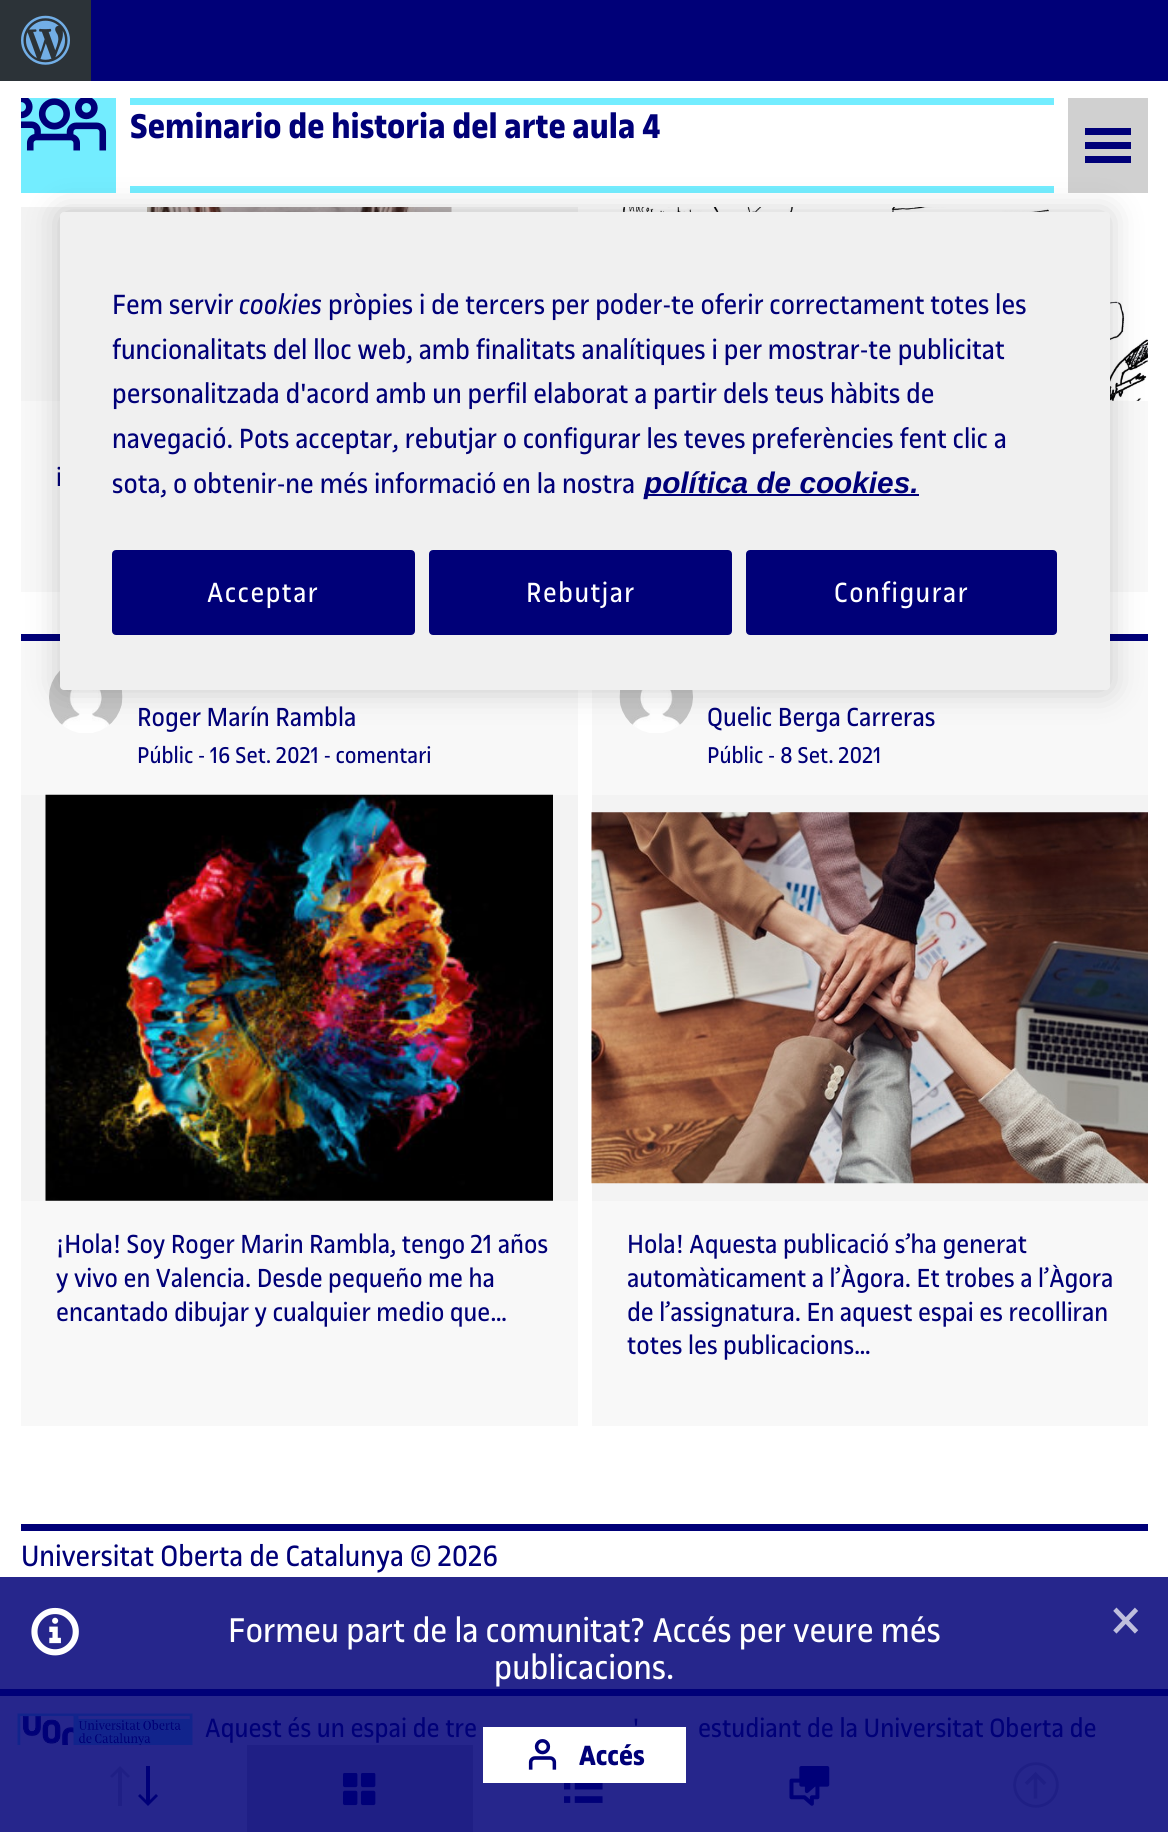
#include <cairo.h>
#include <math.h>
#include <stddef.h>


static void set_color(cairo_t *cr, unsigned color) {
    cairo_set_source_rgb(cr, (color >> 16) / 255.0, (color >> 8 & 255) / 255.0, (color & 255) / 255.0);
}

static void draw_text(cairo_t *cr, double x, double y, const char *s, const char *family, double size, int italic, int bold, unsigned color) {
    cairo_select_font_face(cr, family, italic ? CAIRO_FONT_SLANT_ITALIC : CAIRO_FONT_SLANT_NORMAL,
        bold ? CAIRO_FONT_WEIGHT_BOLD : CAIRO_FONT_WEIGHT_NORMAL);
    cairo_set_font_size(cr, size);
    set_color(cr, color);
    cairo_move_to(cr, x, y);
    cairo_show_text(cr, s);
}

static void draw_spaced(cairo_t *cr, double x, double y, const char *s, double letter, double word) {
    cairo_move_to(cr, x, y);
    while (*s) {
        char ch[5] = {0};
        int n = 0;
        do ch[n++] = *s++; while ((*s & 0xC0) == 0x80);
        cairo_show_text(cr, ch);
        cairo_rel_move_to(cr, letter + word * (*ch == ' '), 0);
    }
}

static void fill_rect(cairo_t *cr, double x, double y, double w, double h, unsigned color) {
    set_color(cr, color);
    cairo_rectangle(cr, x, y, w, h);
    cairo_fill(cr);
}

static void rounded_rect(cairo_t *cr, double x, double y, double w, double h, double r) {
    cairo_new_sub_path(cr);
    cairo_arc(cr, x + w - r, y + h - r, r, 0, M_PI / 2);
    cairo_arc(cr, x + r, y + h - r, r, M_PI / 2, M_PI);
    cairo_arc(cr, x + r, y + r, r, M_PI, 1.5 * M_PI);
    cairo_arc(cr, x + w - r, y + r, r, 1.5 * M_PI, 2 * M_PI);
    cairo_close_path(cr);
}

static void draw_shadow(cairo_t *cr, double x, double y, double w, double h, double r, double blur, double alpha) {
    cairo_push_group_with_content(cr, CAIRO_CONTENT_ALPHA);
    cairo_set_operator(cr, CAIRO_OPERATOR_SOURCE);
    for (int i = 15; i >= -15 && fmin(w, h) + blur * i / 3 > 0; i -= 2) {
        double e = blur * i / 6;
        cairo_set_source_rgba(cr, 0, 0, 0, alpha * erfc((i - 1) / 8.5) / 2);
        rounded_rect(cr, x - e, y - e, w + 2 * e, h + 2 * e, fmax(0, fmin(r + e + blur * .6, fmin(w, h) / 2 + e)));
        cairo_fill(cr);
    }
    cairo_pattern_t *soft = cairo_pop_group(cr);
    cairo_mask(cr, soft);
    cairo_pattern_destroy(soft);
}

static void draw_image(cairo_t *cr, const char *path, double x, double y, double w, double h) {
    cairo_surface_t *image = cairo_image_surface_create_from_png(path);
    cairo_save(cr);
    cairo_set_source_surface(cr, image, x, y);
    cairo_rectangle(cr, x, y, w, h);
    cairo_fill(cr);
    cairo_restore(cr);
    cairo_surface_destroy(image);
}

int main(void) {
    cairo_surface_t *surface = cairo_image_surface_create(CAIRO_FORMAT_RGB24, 1168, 1832);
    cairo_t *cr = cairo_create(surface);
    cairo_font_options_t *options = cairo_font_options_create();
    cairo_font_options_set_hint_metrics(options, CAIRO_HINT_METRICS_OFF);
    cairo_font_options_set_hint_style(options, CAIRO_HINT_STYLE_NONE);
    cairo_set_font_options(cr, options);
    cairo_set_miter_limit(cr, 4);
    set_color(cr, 0xFFFFFF);
    cairo_paint(cr);
    fill_rect(cr, 0, 1577, 1168, 112, 0x26268C);
    fill_rect(cr, 91, 0, 1077, 81, 0x000078);
    fill_rect(cr, 0, 0, 91, 81, 0x2C3338);
    draw_image(cr, "assets/img1.png", 21, 15, 49, 50);
    fill_rect(cr, 21, 98, 95, 95, 0x73EDFF);
    draw_image(cr, "assets/img2.png", 21, 98, 86, 53);
    fill_rect(cr, 130, 98, 924, 7, 0x73EDFF);
    fill_rect(cr, 130, 186, 924, 7, 0x73EDFF);
    draw_text(cr, 130, 138, "Seminario de historia del arte aula 4", "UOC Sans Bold", 36.75, 0, 1, 0x000078);
    fill_rect(cr, 1068, 98, 80, 95, 0xD0D0D0);
    fill_rect(cr, 1085, 128, 46, 7, 0x000078);
    fill_rect(cr, 1085, 142, 46, 7, 0x000078);
    fill_rect(cr, 1085, 156, 46, 7, 0x000078);
    fill_rect(cr, 21, 401, 39, 191, 0xF8F8F8);
    fill_rect(cr, 21, 207, 557, 194, 0xF3F3F3);
    draw_image(cr, "assets/img3.png", 147, 207, 305, 5);
    draw_text(cr, 56, 486, "i", "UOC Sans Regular", 28, 0, 0, 0x000078);
    fill_rect(cr, 1110, 401, 38, 191, 0xF8F8F8);
    draw_image(cr, "assets/img4.png", 591, 207, 557, 194);
    fill_rect(cr, 21, 641, 557, 785, 0xF8F8F8);
    fill_rect(cr, 21, 634, 39, 7, 0x000078);
    draw_image(cr, "assets/img5.png", 49, 670, 74, 63);
    draw_text(cr, 137, 726, "Roger Marín Rambla", "UOC Sans Regular", 28, 0, 0, 0x000078);
    draw_text(cr, 137, 763, "Públic - 16 Set. 2021 - comentari", "UOC Sans Regular", 24.5, 0, 0, 0x000078);
    fill_rect(cr, 21, 795, 557, 406, 0xF3F3F3);
    draw_image(cr, "assets/img6.png", 45, 794, 508, 407);
    draw_text(cr, 56, 1253, "¡Hola! Soy Roger Marin Rambla, tengo 21 años", "UOC Sans Regular", 28, 0, 0, 0x000078);
    draw_text(cr, 56, 1287, "y vivo en Valencia. Desde pequeño me ha", "UOC Sans Regular", 28, 0, 0, 0x000078);
    draw_text(cr, 56, 1321, "encantado dibujar y cualquier medio que…", "UOC Sans Regular", 28, 0, 0, 0x000078);
    fill_rect(cr, 592, 641, 556, 785, 0xF8F8F8);
    fill_rect(cr, 1110, 634, 38, 7, 0x000078);
    draw_image(cr, "assets/img7.png", 619, 690, 74, 43);
    draw_text(cr, 707, 726, "Quelic Berga Carreras", "UOC Sans Regular", 28, 0, 0, 0x000078);
    draw_text(cr, 707, 763, "Públic - 8 Set. 2021", "UOC Sans Regular", 24.5, 0, 0, 0x000078);
    fill_rect(cr, 592, 795, 556, 406, 0xF3F3F3);
    draw_image(cr, "assets/img8.png", 591, 812, 557, 372);
    draw_text(cr, 627, 1253, "Hola! Aquesta publicació s’ha generat", "UOC Sans Regular", 28, 0, 0, 0x000078);
    draw_text(cr, 627, 1287, "automàticament a l’Àgora. Et trobes a l’Àgora", "UOC Sans Regular", 28, 0, 0, 0x000078);
    draw_text(cr, 627, 1321, "de l’assignatura. En aquest espai es recolliran", "UOC Sans Regular", 28, 0, 0, 0x000078);
    draw_text(cr, 627, 1354, "totes les publicacions…", "UOC Sans Regular", 28, 0, 0, 0x000078);
    fill_rect(cr, 0, 1696, 1168, 136, 0x26268C);
    set_color(cr, 0x1F1F85);
    cairo_new_path(cr);
    cairo_move_to(cr, 120, 1766);
    cairo_line_to(cr, 110, 1776);
    cairo_line_to(cr, 112, 1778);
    cairo_line_to(cr, 118, 1772);
    cairo_line_to(cr, 118, 1806);
    cairo_line_to(cr, 122, 1806);
    cairo_line_to(cr, 122, 1772);
    cairo_line_to(cr, 128, 1778);
    cairo_line_to(cr, 130, 1776);
    cairo_close_path(cr);
    cairo_fill(cr);
    set_color(cr, 0x000078);
    cairo_new_path(cr);
    cairo_move_to(cr, 148, 1806);
    cairo_line_to(cr, 158, 1796);
    cairo_line_to(cr, 156, 1794);
    cairo_line_to(cr, 150, 1800);
    cairo_line_to(cr, 150, 1766);
    cairo_line_to(cr, 146, 1766);
    cairo_line_to(cr, 146, 1800);
    cairo_line_to(cr, 140, 1794);
    cairo_line_to(cr, 138, 1796);
    cairo_close_path(cr);
    cairo_fill(cr);
    fill_rect(cr, 247, 1745, 226, 87, 0x1F1F85);
    draw_image(cr, "assets/img9.png", 343, 1773, 33, 33);
    draw_image(cr, "assets/img10.png", 564, 1783, 39, 20);
    draw_image(cr, "assets/img11.png", 789, 1766, 41, 40);
    draw_image(cr, "assets/img12.png", 1013, 1762, 46, 46);
    fill_rect(cr, 21, 1524, 1127, 7, 0x000078);
    draw_text(cr, 21, 1566, "Universitat Oberta de Catalunya © 2026", "UOC Sans Regular", 31.5, 0, 0, 0x000078);
    draw_image(cr, "assets/img13.png", 31, 1607, 48, 49);
    draw_text(cr, 228, 1642, "Formeu part de la comunitat? Accés per veure més", "UOC Sans Regular", 36.75, 0, 0, 0xFFFFFF);
    draw_text(cr, 494, 1679, "publicacions.", "UOC Sans Regular", 36.75, 0, 0, 0xFFFFFF);
    fill_rect(cr, 483, 1727, 203, 56, 0xFFFFFF);
    draw_image(cr, "assets/img14.png", 528, 1739, 29, 31);
    draw_text(cr, 579, 1765, "Accés", "UOC Sans Bold", 29.75, 0, 1, 0x000078);
    draw_text(cr, 1110, 1642, "×", "UOC Sans Regular", 63, 0, 0, 0xBEBEDD);
    set_color(cr, 0x000000);
    draw_shadow(cr, 60, 212, 1050, 478, 4, 16, 0.2);
    set_color(cr, 0xF0F0F0);
    rounded_rect(cr, 60, 212, 1050, 478, 4);
    cairo_fill(cr);
    draw_text(cr, 112, 314, "Fem servir", "UOC Sans Regular", 29.75, 0, 0, 0x000078);
    draw_text(cr, 239, 314, "cookies", "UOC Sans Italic", 29.75, 1, 0, 0x000078);
    draw_text(cr, 328, 314, "pròpies i de tercers per poder-te oferir correctament totes les", "UOC Sans Regular", 29.75, 0, 0, 0x000078);
    draw_text(cr, 112, 359, "funcionalitats del lloc web, amb finalitats analítiques i per mostrar-te publicitat", "UOC Sans Regular", 29.75, 0, 0, 0x000078);
    draw_text(cr, 112, 403, "personalitzada d'acord amb un perfil elaborat a partir dels teus hàbits de", "UOC Sans Regular", 29.75, 0, 0, 0x000078);
    draw_text(cr, 112, 448, "navegació. Pots acceptar, rebutjar o configurar les teves preferències fent clic a", "UOC Sans Regular", 29.75, 0, 0, 0x000078);
    draw_text(cr, 112, 493, "sota, o obtenir-ne més informació en la nostra", "UOC Sans Regular", 29.75, 0, 0, 0x000078);
    fill_rect(cr, 644, 494, 275, 2, 0x000078);
    draw_text(cr, 644, 493, "política de cookies.", "Liberation Sans", 29.75, 1, 1, 0x000078);
    rounded_rect(cr, 113, 551, 301, 83, 3);
    cairo_fill_preserve(cr);
    cairo_stroke(cr);
    cairo_select_font_face(cr, "UOC Sans Regular", CAIRO_FONT_SLANT_NORMAL, CAIRO_FONT_WEIGHT_NORMAL);
    set_color(cr, 0xFFFFFF);
    draw_spaced(cr, 207, 602, "Acceptar", 1.5, 0);
    set_color(cr, 0x000078);
    rounded_rect(cr, 430, 551, 301, 83, 3);
    cairo_fill_preserve(cr);
    cairo_stroke(cr);
    set_color(cr, 0xFFFFFF);
    draw_spaced(cr, 526, 602, "Rebutjar", 1.5, 0);
    set_color(cr, 0x000078);
    rounded_rect(cr, 747, 551, 309, 83, 3);
    cairo_fill_preserve(cr);
    cairo_stroke(cr);
    set_color(cr, 0xFFFFFF);
    draw_spaced(cr, 834, 602, "Configurar", 1.5, 0);
    fill_rect(cr, 0, 1689, 1168, 7, 0x000078);
    draw_image(cr, "assets/img15.png", 17, 1713, 176, 32);
    draw_text(cr, 205, 1737, "Aquest és un espai de tre", "UOC Sans Regular", 28.4, 0, 0, 0x000078);
    draw_text(cr, 633, 1737, "'", "UOC Sans Regular", 28.4, 0, 0, 0x000078);
    draw_text(cr, 698, 1737, "estudiant de la Universitat Oberta de", "UOC Sans Regular", 28.4, 0, 0, 0x000078);
    cairo_surface_write_to_png(surface, "output.png");
    cairo_font_options_destroy(options);
    cairo_destroy(cr);
    cairo_surface_destroy(surface);
    return 0;
}
